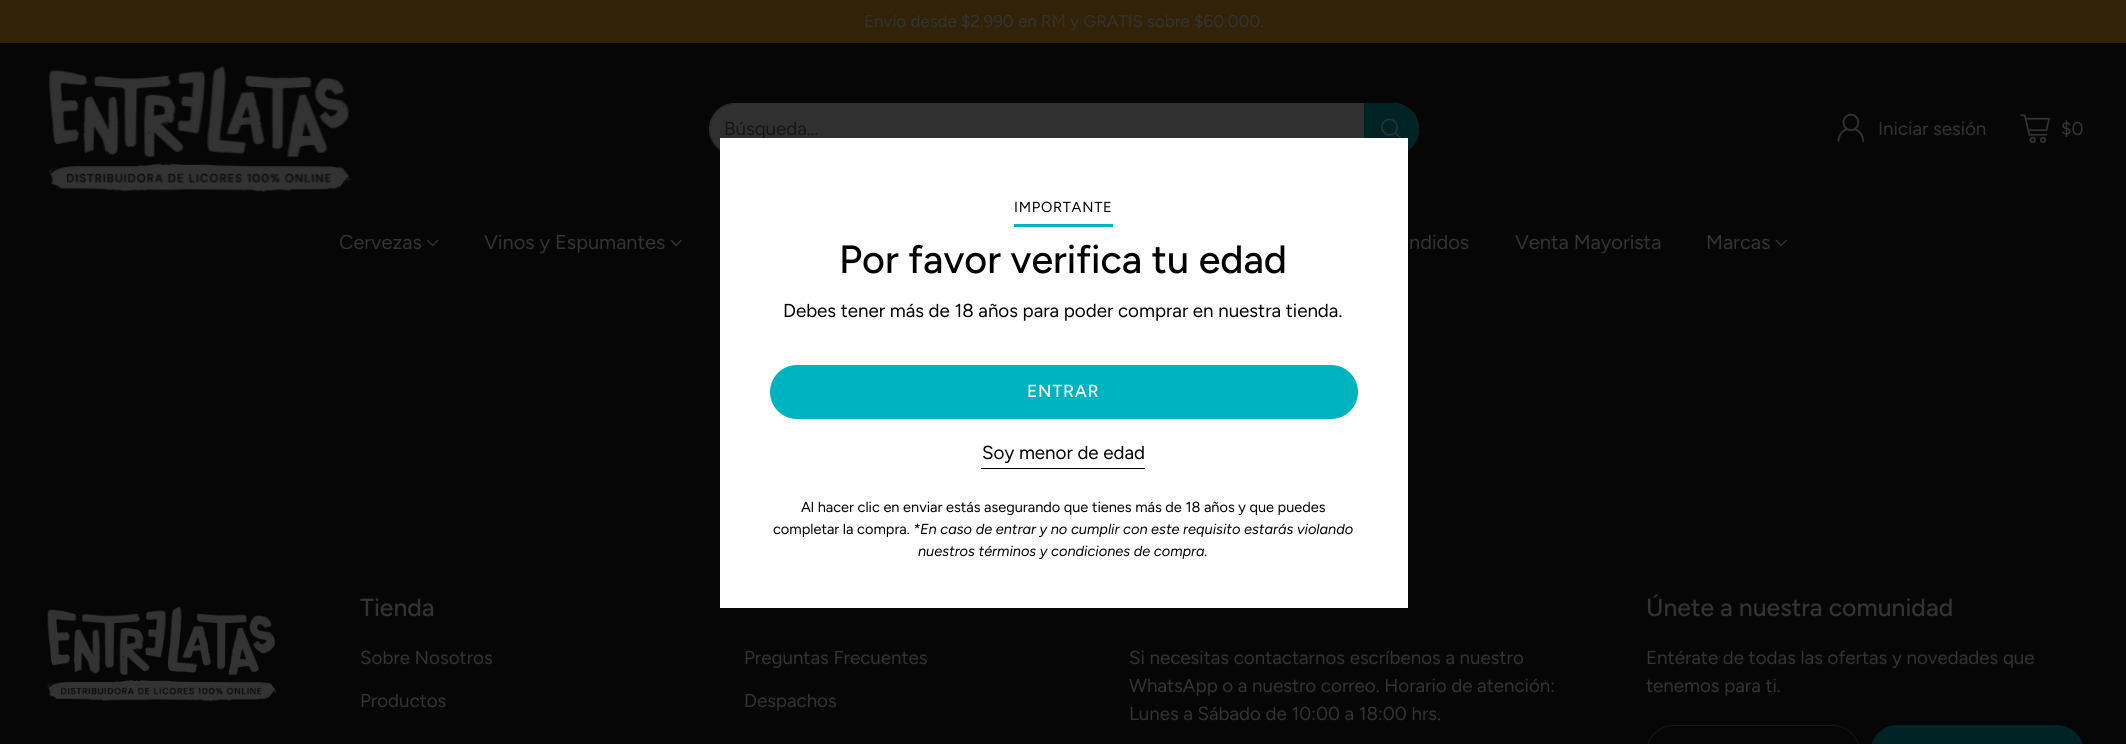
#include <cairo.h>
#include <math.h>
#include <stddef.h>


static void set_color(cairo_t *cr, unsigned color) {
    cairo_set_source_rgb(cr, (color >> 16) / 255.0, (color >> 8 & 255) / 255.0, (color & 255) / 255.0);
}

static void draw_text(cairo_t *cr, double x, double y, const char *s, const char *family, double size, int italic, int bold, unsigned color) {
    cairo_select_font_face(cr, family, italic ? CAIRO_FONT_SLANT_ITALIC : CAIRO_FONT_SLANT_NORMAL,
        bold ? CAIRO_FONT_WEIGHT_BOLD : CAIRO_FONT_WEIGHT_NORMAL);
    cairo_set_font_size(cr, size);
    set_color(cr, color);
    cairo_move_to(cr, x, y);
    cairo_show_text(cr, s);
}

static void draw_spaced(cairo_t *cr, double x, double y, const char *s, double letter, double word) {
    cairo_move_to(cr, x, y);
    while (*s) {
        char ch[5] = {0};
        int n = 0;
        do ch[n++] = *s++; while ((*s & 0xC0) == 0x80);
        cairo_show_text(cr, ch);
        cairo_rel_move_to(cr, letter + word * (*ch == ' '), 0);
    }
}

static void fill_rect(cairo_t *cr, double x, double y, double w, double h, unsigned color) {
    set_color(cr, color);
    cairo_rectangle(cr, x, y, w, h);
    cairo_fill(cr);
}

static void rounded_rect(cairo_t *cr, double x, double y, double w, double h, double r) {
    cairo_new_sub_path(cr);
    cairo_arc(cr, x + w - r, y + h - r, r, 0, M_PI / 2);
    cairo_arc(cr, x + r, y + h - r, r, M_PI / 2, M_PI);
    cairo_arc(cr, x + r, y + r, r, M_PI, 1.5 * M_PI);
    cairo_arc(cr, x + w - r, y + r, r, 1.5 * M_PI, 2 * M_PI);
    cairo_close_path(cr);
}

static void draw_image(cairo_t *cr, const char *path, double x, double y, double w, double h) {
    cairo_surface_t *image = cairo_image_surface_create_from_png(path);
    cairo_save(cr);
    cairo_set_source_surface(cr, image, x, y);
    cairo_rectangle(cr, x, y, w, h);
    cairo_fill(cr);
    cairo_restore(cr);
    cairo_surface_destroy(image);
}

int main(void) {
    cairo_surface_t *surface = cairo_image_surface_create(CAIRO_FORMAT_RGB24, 2126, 744);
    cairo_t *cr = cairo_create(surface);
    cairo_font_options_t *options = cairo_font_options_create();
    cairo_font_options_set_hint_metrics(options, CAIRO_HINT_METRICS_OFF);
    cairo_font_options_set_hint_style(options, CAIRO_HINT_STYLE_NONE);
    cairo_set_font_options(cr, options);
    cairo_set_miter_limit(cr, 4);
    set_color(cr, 0x060606);
    cairo_paint(cr);
    fill_rect(cr, 0, 0, 2126, 43, 0x312208);
    draw_text(cr, 864, 27, "Envío desde $2.990 en RM y GRATIS sobre $60.000.", "Figtree", 17, 0, 0, 0x333333);
    draw_image(cr, "assets/img1.png", 46, 65, 305, 127);
    rounded_rect(cr, 709.5, 103.5, 709, 51, 25.5);
    set_color(cr, 0x303030);
    cairo_set_line_width(cr, 1);
    cairo_stroke(cr);
    rounded_rect(cr, 710, 104, 708, 50, 25);
    cairo_fill(cr);
    draw_text(cr, 724, 135, "Búsqueda…", "Figtree", 18.75, 0, 0, 0x151515);
    set_color(cr, 0x002426);
    cairo_new_path(cr);
    cairo_move_to(cr, 1364, 103);
    cairo_line_to(cr, 1393, 103);
    cairo_curve_to(cr, 1407.5, 103, 1419, 114.5, 1419, 129);
    cairo_curve_to(cr, 1419, 143.5, 1407.5, 155, 1393, 155);
    cairo_line_to(cr, 1364, 155);
    cairo_close_path(cr);
    cairo_fill(cr);
    draw_image(cr, "assets/img2.png", 1381, 119, 20, 19);
    draw_image(cr, "assets/img3.png", 1837, 113, 28, 29);
    draw_text(cr, 1878, 135, "Iniciar sesión", "Figtree", 18.75, 0, 0, 0x333333);
    draw_image(cr, "assets/img4.png", 2020, 114, 30, 30);
    draw_text(cr, 2061, 135, "$0", "Figtree", 18.75, 0, 0, 0x333333);
    draw_text(cr, 339, 249, "Cervezas", "Figtree", 20, 0, 0, 0x333333);
    cairo_new_path(cr);
    cairo_move_to(cr, 427, 240);
    cairo_line_to(cr, 432.5, 245.5);
    cairo_line_to(cr, 438, 240);
    cairo_set_line_width(cr, 1.4);
    cairo_stroke(cr);
    draw_text(cr, 484, 249, "Vinos y Espumantes", "Figtree", 20, 0, 0, 0x333333);
    cairo_new_path(cr);
    cairo_move_to(cr, 671, 240);
    cairo_line_to(cr, 676, 245.5);
    cairo_line_to(cr, 681.5, 240);
    cairo_stroke(cr);
    draw_text(cr, 1409, 249, "ndidos", "Figtree", 20, 0, 0, 0x333333);
    draw_text(cr, 1515, 249, "Venta Mayorista", "Figtree", 20, 0, 0, 0x333333);
    draw_text(cr, 1706, 249, "Marcas", "Figtree", 20, 0, 0, 0x333333);
    cairo_new_path(cr);
    cairo_move_to(cr, 1776, 240);
    cairo_line_to(cr, 1781, 245.5);
    cairo_line_to(cr, 1786.5, 240);
    cairo_stroke(cr);
    fill_rect(cr, 720, 138, 688, 470, 0xFFFFFF);
    cairo_set_font_size(cr, 14.55);
    set_color(cr, 0x000000);
    draw_spaced(cr, 1014, 212, "IMPORTANTE", 0.75, 0);
    fill_rect(cr, 1014, 224, 99, 3, 0x00B3C0);
    draw_text(cr, 839, 273, "Por favor verifica tu edad", "Figtree Medium", 39.4, 0, 0, 0x000000);
    draw_text(cr, 783, 317, "Debes tener más de 18 años para poder comprar en nuestra tienda.", "Figtree", 18.75, 0, 0, 0x000000);
    set_color(cr, 0x00B3C0);
    rounded_rect(cr, 770, 365, 588, 54, 27);
    cairo_fill(cr);
    cairo_select_font_face(cr, "Figtree Medium", CAIRO_FONT_SLANT_NORMAL, CAIRO_FONT_WEIGHT_NORMAL);
    cairo_set_font_size(cr, 17.5);
    set_color(cr, 0xFFFFFF);
    draw_spaced(cr, 1027, 397, "ENTRAR", 0.75, 0);
    draw_text(cr, 982, 459, "Soy menor de edad", "Figtree", 18.75, 0, 0, 0x000000);
    fill_rect(cr, 981, 468, 164, 1, 0x000000);
    draw_text(cr, 801, 512, "Al hacer clic en enviar estás asegurando que tienes más de 18 años y que puedes", "Figtree", 14.55, 0, 0, 0x000000);
    draw_text(cr, 773, 534, "completar la compra.", "Figtree", 14.55, 0, 0, 0x000000);
    draw_text(cr, 913, 534, "*En caso de entrar y no cumplir con este requisito estarás violando", "Figtree", 14.55, 1, 0, 0x000000);
    draw_text(cr, 918, 556, "nuestros términos y condiciones de compra.", "Figtree", 14.55, 1, 0, 0x000000);
    draw_image(cr, "assets/img5.png", 45, 606, 232, 96);
    draw_text(cr, 360, 616, "Tienda", "Figtree Medium", 24.75, 0, 0, 0x333333);
    draw_text(cr, 360, 664, "Sobre Nosotros", "Figtree", 18.75, 0, 0, 0x333333);
    draw_text(cr, 360, 707, "Productos", "Figtree", 18.75, 0, 0, 0x333333);
    draw_text(cr, 744, 664, "Preguntas Frecuentes", "Figtree", 18.75, 0, 0, 0x333333);
    draw_text(cr, 744, 707, "Despachos", "Figtree", 18.75, 0, 0, 0x333333);
    draw_text(cr, 1129, 664, "Si necesitas contactarnos escríbenos a nuestro", "Figtree", 18.75, 0, 0, 0x333333);
    draw_text(cr, 1129, 692, "WhatsApp o a nuestro correo. Horario de atención:", "Figtree", 18.75, 0, 0, 0x333333);
    draw_text(cr, 1129, 720, "Lunes a Sábado de 10:00 a 18:00 hrs.", "Figtree", 18.75, 0, 0, 0x333333);
    draw_text(cr, 1646, 616, "Únete a nuestra comunidad", "Figtree Medium", 24.75, 0, 0, 0x333333);
    draw_text(cr, 1646, 664, "Entérate de todas las ofertas y novedades que", "Figtree", 18.75, 0, 0, 0x333333);
    draw_text(cr, 1646, 692, "tenemos para ti.", "Figtree", 18.75, 0, 0, 0x333333);
    rounded_rect(cr, 1646.5, 725.5, 213, 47, 27);
    set_color(cr, 0x171717);
    cairo_set_line_width(cr, 1);
    cairo_stroke(cr);
    set_color(cr, 0x002426);
    rounded_rect(cr, 1870, 725, 214, 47, 27.5);
    cairo_fill(cr);
    cairo_surface_write_to_png(surface, "output.png");
    cairo_font_options_destroy(options);
    cairo_destroy(cr);
    cairo_surface_destroy(surface);
    return 0;
}
